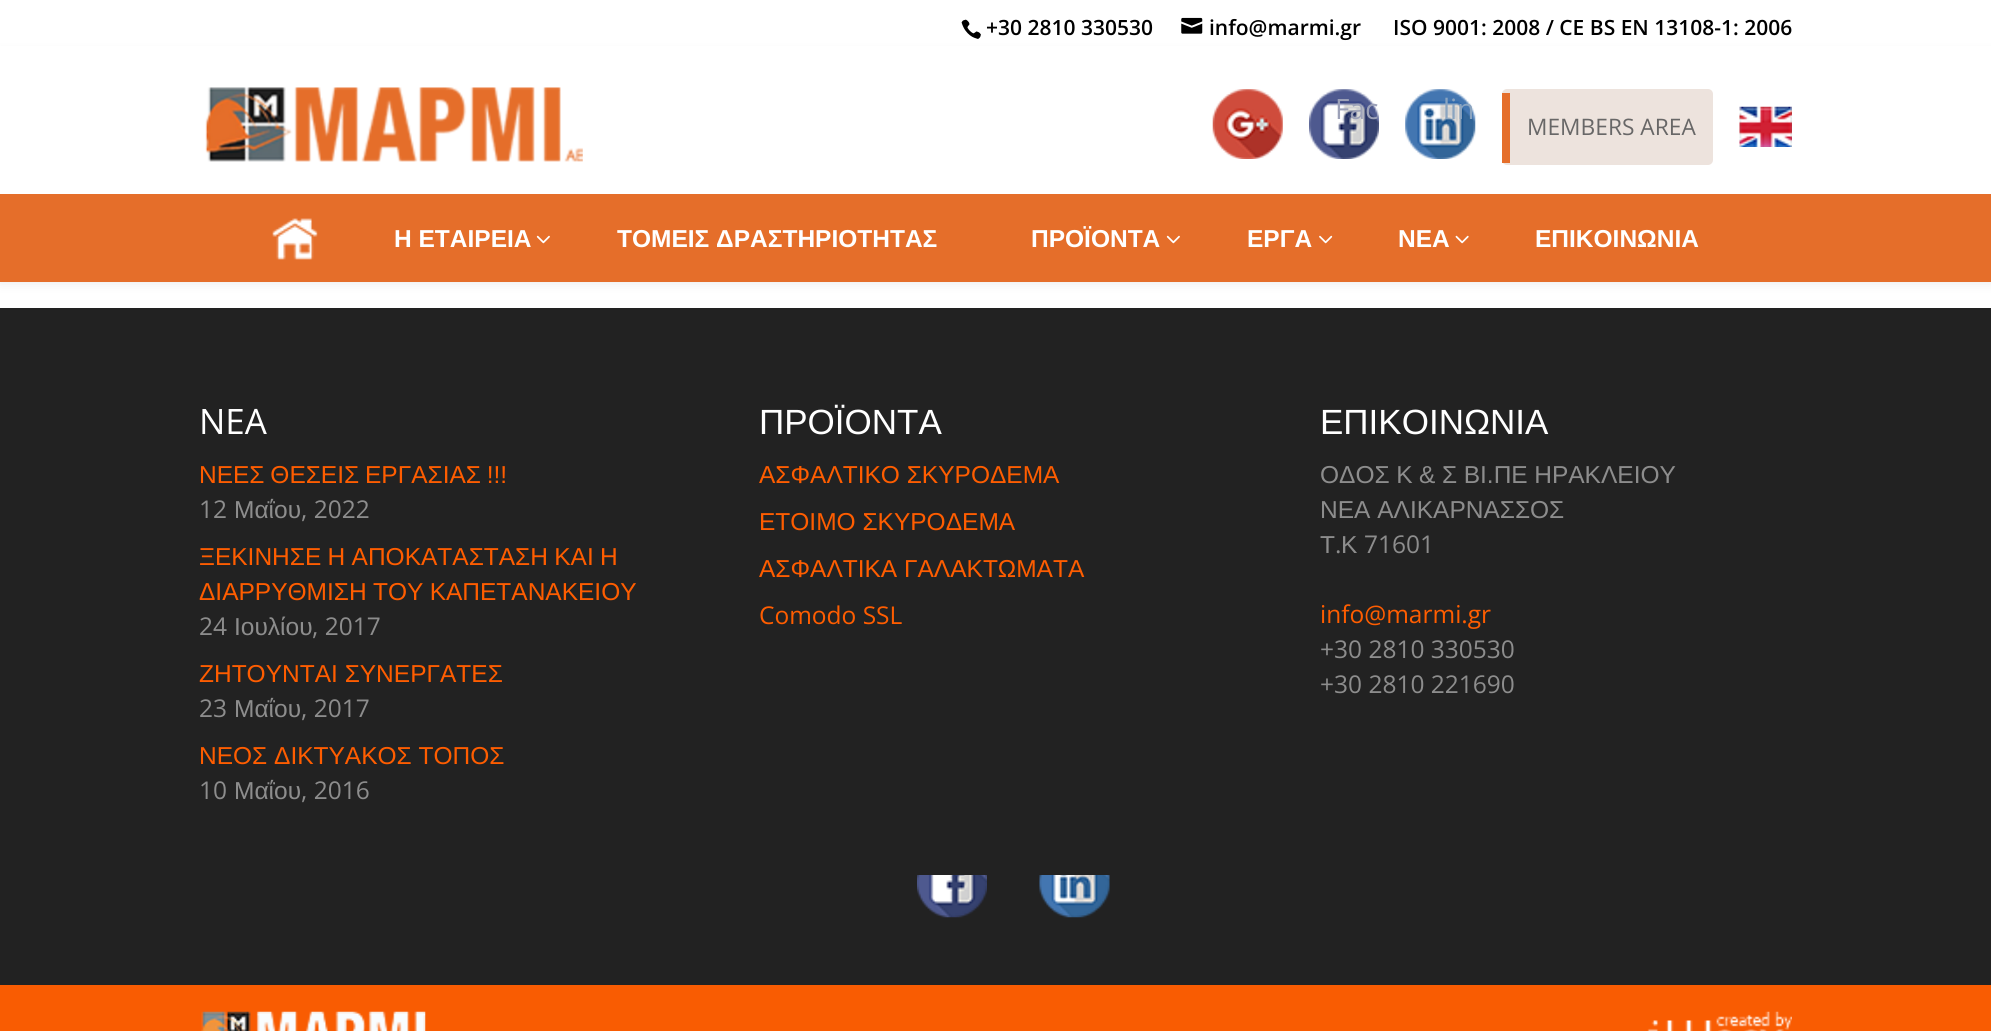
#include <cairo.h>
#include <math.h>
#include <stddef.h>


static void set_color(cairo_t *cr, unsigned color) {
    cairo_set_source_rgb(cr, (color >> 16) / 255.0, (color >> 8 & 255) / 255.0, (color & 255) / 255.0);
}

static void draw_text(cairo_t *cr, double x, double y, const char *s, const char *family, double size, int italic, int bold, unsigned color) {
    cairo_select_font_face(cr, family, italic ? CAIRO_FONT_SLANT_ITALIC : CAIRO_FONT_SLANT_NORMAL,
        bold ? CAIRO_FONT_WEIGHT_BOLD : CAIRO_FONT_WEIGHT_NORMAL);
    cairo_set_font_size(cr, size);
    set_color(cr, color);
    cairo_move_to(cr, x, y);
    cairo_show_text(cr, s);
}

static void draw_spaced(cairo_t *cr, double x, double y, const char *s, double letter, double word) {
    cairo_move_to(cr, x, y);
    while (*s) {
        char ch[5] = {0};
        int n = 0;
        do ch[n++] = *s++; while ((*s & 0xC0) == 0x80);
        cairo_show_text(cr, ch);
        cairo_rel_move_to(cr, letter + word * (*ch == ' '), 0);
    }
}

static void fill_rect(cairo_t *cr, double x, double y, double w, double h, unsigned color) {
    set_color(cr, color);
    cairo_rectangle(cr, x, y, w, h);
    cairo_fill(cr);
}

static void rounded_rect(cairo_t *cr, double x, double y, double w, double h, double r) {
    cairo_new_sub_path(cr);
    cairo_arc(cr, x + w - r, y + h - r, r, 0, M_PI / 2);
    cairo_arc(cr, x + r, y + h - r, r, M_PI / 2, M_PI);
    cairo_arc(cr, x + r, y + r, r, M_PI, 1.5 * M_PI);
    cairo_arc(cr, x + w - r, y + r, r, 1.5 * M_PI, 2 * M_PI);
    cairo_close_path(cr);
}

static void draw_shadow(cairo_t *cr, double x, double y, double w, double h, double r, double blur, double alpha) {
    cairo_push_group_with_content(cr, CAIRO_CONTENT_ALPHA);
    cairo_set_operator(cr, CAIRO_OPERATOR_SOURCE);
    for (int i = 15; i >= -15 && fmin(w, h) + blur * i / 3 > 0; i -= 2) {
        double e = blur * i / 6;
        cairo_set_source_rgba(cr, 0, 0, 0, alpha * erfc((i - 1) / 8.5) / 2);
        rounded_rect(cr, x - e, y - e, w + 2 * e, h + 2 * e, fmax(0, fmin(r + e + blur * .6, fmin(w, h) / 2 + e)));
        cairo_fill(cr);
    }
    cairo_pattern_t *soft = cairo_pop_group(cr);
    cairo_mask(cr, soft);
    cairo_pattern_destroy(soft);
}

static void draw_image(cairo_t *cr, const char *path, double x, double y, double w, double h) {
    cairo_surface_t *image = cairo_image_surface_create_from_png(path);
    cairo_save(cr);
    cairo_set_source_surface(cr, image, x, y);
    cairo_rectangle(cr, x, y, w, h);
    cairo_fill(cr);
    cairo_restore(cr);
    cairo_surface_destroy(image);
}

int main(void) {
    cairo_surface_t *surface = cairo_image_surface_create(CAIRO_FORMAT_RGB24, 1991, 1031);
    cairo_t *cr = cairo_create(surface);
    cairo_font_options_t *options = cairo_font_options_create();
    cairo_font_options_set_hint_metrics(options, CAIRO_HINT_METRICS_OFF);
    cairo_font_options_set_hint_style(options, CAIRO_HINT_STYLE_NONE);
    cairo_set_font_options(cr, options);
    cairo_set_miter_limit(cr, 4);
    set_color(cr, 0xFFFFFF);
    cairo_paint(cr);
    set_color(cr, 0x000000);
    draw_shadow(cr, 0, 54, 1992, 228, 0, 6, 0.1);
    draw_image(cr, "assets/img1.png", 961, 19, 20, 20);
    draw_text(cr, 986, 35, "+30 2810 330530", "Open Sans SemiBold", 21, 0, 0, 0x000000);
    draw_image(cr, "assets/img2.png", 1181, 17, 22, 17);
    draw_text(cr, 1209, 35, "info@marmi.gr", "Open Sans SemiBold", 21, 0, 0, 0x000000);
    draw_text(cr, 1393, 35, "ISO 9001: 2008 / CE BS EN 13108-1: 2006", "Open Sans SemiBold", 21, 0, 0, 0x000000);
    fill_rect(cr, 0, 46, 1991, 148, 0xFFFFFF);
    draw_image(cr, "assets/img3.png", 205, 87, 378, 75);
    draw_image(cr, "assets/img4.png", 1212, 89, 71, 70);
    draw_image(cr, "assets/img5.png", 1309, 89, 70, 70);
    draw_text(cr, 1335, 119, "Fac", "Open Sans", 28, 0, 0, 0x9CA1B8);
    draw_image(cr, "assets/img6.png", 1405, 89, 71, 70);
    draw_text(cr, 1443, 119, "lin", "Open Sans", 28, 0, 0, 0x8AA4C0);
    set_color(cr, 0xEDE3DD);
    rounded_rect(cr, 1502, 89, 211, 76, 5);
    cairo_fill(cr);
    fill_rect(cr, 1502, 93, 8, 70, 0xE56E2A);
    draw_text(cr, 1527, 135, "MEMBERS AREA", "Open Sans", 22.75, 0, 0, 0x686767);
    draw_image(cr, "assets/img7.png", 1739, 106, 53, 41);
    fill_rect(cr, 0, 194, 1991, 88, 0xE56E2A);
    draw_image(cr, "assets/img8.png", 272, 218, 46, 42);
    draw_text(cr, 394, 247, "Η ΕΤΑΙΡΕΙΑ", "Liberation Sans", 24.5, 0, 1, 0xFFFFFF);
    draw_image(cr, "assets/img9.png", 536, 235, 14, 9);
    draw_text(cr, 617, 247, "ΤΟΜΕΙΣ ΔΡΑΣΤΗΡΙΟΤΗΤΑΣ", "Liberation Sans", 24.5, 0, 1, 0xFFFFFF);
    draw_text(cr, 1031, 247, "ΠΡΟΪΟΝΤΑ", "Liberation Sans", 24.5, 0, 1, 0xFFFFFF);
    draw_image(cr, "assets/img9.png", 1166, 235, 14, 9);
    draw_text(cr, 1247, 247, "ΕΡΓΑ", "Liberation Sans", 24.5, 0, 1, 0xFFFFFF);
    draw_image(cr, "assets/img10.png", 1319, 235, 14, 9);
    draw_text(cr, 1398, 247, "ΝΕΑ", "Liberation Sans", 24.5, 0, 1, 0xFFFFFF);
    draw_image(cr, "assets/img11.png", 1455, 235, 14, 9);
    draw_text(cr, 1535, 247, "ΕΠΙΚΟΙΝΩΝΙΑ", "Liberation Sans", 24.5, 0, 1, 0xFFFFFF);
    fill_rect(cr, 0, 308, 1991, 677, 0x222222);
    draw_text(cr, 199, 434, "NEA", "Open Sans", 35, 0, 0, 0xFFFFFF);
    cairo_select_font_face(cr, "Liberation Sans", CAIRO_FONT_SLANT_NORMAL, CAIRO_FONT_WEIGHT_NORMAL);
    cairo_set_font_size(cr, 24.5);
    set_color(cr, 0xFF5D00);
    draw_spaced(cr, 199, 483, "ΝΕΕΣ ΘΕΣΕΙΣ ΕΡΓΑΣΙΑΣ !!!", 0, -1);
    draw_text(cr, 199, 518, "12", "Open Sans", 24.5, 0, 0, 0x8D8D8D);
    draw_text(cr, 234, 518, "Μαΐου", "Liberation Sans", 24.5, 0, 0, 0x8D8D8D);
    draw_text(cr, 301, 518, ", 2022", "Open Sans", 24.5, 0, 0, 0x8D8D8D);
    cairo_select_font_face(cr, "Liberation Sans", CAIRO_FONT_SLANT_NORMAL, CAIRO_FONT_WEIGHT_NORMAL);
    set_color(cr, 0xFF5D00);
    draw_spaced(cr, 199, 565, "ΞΕΚΙΝΗΣΕ Η ΑΠΟΚΑΤΑΣΤΑΣΗ ΚΑΙ Η", 0, -0.5);
    draw_spaced(cr, 199, 600, "ΔΙΑΡΡΥΘΜΙΣΗ ΤΟΥ ΚΑΠΕΤΑΝΑΚΕΙΟΥ", 0, -0.5);
    draw_text(cr, 199, 635, "24", "Open Sans", 24.5, 0, 0, 0x8D8D8D);
    draw_text(cr, 234, 635, "Ιουλίου", "Liberation Sans", 24.5, 0, 0, 0x8D8D8D);
    draw_text(cr, 312, 635, ", 2017", "Open Sans", 24.5, 0, 0, 0x8D8D8D);
    draw_text(cr, 199, 682, "ΖΗΤΟΥΝΤΑΙ ΣΥΝΕΡΓΑΤΕΣ", "Liberation Sans", 24.5, 0, 0, 0xFF5D00);
    draw_text(cr, 199, 717, "23", "Open Sans", 24.5, 0, 0, 0x8D8D8D);
    draw_text(cr, 234, 717, "Μαΐου", "Liberation Sans", 24.5, 0, 0, 0x8D8D8D);
    draw_text(cr, 301, 717, ", 2017", "Open Sans", 24.5, 0, 0, 0x8D8D8D);
    draw_text(cr, 199, 764, "ΝΕΟΣ ΔΙΚΤΥΑΚΟΣ ΤΟΠΟΣ", "Liberation Sans", 24.5, 0, 0, 0xFF5D00);
    draw_text(cr, 199, 799, "10", "Open Sans", 24.5, 0, 0, 0x8D8D8D);
    draw_text(cr, 234, 799, "Μαΐου", "Liberation Sans", 24.5, 0, 0, 0x8D8D8D);
    draw_text(cr, 301, 799, ", 2016", "Open Sans", 24.5, 0, 0, 0x8D8D8D);
    draw_text(cr, 759, 434, "ΠΡΟΪΟΝΤΑ", "Liberation Sans", 35, 0, 0, 0xFFFFFF);
    draw_text(cr, 759, 483, "ΑΣΦΑΛΤΙΚΟ ΣΚΥΡΟΔΕΜΑ", "Liberation Sans", 24.5, 0, 0, 0xFF5D00);
    draw_text(cr, 759, 530, "ΕΤΟΙΜΟ ΣΚΥΡΟΔΕΜΑ", "Liberation Sans", 24.5, 0, 0, 0xFF5D00);
    draw_text(cr, 759, 577, "ΑΣΦΑΛΤΙΚΑ ΓΑΛΑΚΤΩΜΑΤΑ", "Liberation Sans", 24.5, 0, 0, 0xFF5D00);
    draw_text(cr, 759, 624, "Comodo SSL", "Open Sans", 24.5, 0, 0, 0xFF5D00);
    draw_text(cr, 1320, 434, "ΕΠΙΚΟΙΝΩΝΙΑ", "Liberation Sans", 35, 0, 0, 0xFFFFFF);
    cairo_set_font_size(cr, 24.5);
    set_color(cr, 0x8D8D8D);
    draw_spaced(cr, 1320, 483, "ΟΔΟΣ Κ & Σ ΒΙ.ΠΕ ΗΡΑΚΛΕΙΟΥ", 0, -0.25);
    draw_text(cr, 1320, 518, "ΝΕΑ ΑΛΙΚΑΡΝΑΣΣΟΣ", "Liberation Sans", 24.5, 0, 0, 0x8D8D8D);
    draw_text(cr, 1320, 553, "Τ", "Liberation Sans", 24.5, 0, 0, 0x8D8D8D);
    draw_text(cr, 1335, 553, ".", "Open Sans", 24.5, 0, 0, 0x8D8D8D);
    draw_text(cr, 1341, 553, "Κ", "Liberation Sans", 24.5, 0, 0, 0x8D8D8D);
    draw_text(cr, 1364, 553, "71601", "Open Sans", 24.5, 0, 0, 0x8D8D8D);
    draw_text(cr, 1320, 623, "info@marmi.gr", "Open Sans", 24.5, 0, 0, 0xFF5D00);
    draw_text(cr, 1320, 658, "+30 2810 330530", "Open Sans", 24.5, 0, 0, 0x8D8D8D);
    draw_text(cr, 1320, 693, "+30 2810 221690", "Open Sans", 24.5, 0, 0, 0x8D8D8D);
    draw_image(cr, "assets/img12.png", 917, 875, 70, 43);
    draw_image(cr, "assets/img13.png", 1039, 875, 71, 43);
    fill_rect(cr, 0, 985, 1991, 46, 0xF95C02);
    draw_image(cr, "assets/img14.png", 201, 1011, 225, 20);
    draw_image(cr, "assets/img15.png", 1647, 1011, 145, 20);
    cairo_surface_write_to_png(surface, "output.png");
    cairo_font_options_destroy(options);
    cairo_destroy(cr);
    cairo_surface_destroy(surface);
    return 0;
}
